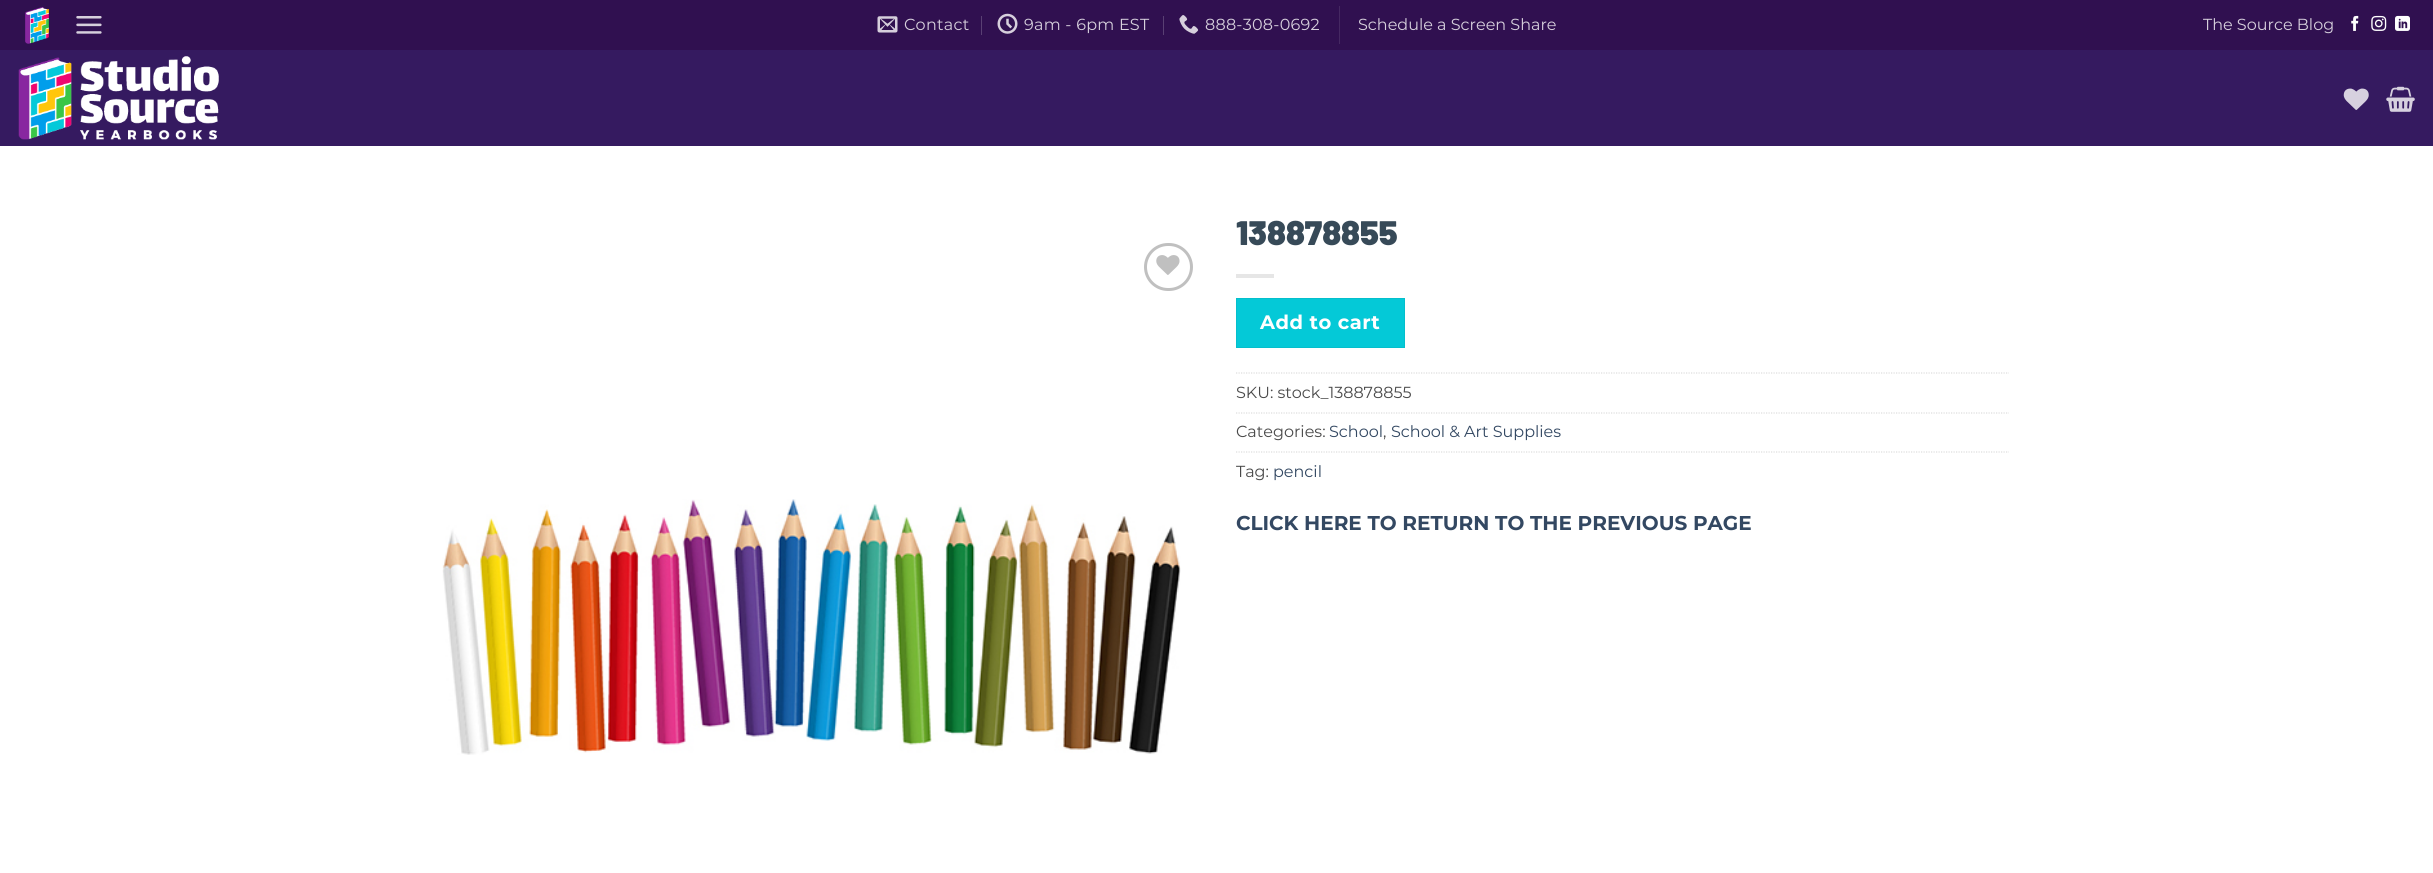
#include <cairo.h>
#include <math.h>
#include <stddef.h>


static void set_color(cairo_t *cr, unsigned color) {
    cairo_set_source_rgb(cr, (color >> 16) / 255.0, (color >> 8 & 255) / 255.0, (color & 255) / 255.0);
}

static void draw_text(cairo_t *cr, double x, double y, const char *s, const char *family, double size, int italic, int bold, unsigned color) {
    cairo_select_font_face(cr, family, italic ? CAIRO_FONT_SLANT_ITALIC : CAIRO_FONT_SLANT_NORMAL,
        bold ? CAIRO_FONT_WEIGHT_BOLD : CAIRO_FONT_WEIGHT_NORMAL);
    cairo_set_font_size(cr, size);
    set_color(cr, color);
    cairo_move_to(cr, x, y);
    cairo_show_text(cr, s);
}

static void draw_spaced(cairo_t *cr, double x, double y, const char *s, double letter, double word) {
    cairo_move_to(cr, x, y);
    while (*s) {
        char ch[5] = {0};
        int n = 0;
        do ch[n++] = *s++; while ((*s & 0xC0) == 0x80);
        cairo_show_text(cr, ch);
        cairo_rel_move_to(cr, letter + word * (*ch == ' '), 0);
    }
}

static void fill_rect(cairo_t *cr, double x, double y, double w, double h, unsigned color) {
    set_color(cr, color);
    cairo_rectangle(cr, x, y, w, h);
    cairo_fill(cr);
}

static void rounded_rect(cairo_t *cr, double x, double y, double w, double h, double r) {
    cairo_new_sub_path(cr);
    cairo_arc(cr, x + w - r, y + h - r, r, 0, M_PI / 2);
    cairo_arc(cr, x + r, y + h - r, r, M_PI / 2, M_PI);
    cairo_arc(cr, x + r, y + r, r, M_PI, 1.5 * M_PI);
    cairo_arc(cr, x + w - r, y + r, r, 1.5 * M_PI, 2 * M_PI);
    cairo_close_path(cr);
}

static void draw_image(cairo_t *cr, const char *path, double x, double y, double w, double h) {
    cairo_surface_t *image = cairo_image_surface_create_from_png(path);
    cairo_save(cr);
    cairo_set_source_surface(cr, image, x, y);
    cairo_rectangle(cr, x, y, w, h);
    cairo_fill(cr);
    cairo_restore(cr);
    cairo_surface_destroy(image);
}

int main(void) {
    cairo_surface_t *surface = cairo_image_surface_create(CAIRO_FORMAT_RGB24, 2433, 873);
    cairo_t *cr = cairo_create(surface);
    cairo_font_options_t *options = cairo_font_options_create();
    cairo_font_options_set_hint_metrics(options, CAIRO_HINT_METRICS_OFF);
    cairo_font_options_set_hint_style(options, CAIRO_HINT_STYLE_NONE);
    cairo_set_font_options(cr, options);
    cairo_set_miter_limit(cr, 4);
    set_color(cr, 0xFFFFFF);
    cairo_paint(cr);
    fill_rect(cr, 0, 0, 2433, 50, 0x301050);
    draw_image(cr, "assets/img1.png", 25, 7, 24, 37);
    draw_image(cr, "assets/img2.png", 76, 16, 26, 18);
    draw_image(cr, "assets/img3.png", 877, 16, 21, 17);
    cairo_select_font_face(cr, "Montserrat", CAIRO_FONT_SLANT_NORMAL, CAIRO_FONT_WEIGHT_NORMAL);
    cairo_set_font_size(cr, 16);
    set_color(cr, 0xD6CFDC);
    draw_spaced(cr, 904, 30, "Contact", 0.25, 0);
    fill_rect(cr, 981, 16, 1, 19, 0x594073);
    draw_image(cr, "assets/img4.png", 997, 13, 21, 21);
    set_color(cr, 0xD6CFDC);
    draw_spaced(cr, 1024, 30, "9am - 6pm EST", 0.25, 0);
    fill_rect(cr, 1163, 16, 1, 19, 0x594073);
    draw_image(cr, "assets/img5.png", 1179, 15, 20, 19);
    set_color(cr, 0xD6CFDC);
    draw_spaced(cr, 1205, 30, "888-308-0692", 0.25, 0);
    fill_rect(cr, 1339, 6, 1, 38, 0x452862);
    draw_text(cr, 1358, 30, "Schedule a Screen Share", "Montserrat", 16, 0, 0, 0xD6CFDC);
    draw_text(cr, 2203, 30, "The Source Blog", "Montserrat", 16, 0, 0, 0xD6CFDC);
    draw_image(cr, "assets/img6.png", 2351, 15, 8, 16);
    draw_image(cr, "assets/img7.png", 2371, 15, 16, 16);
    draw_image(cr, "assets/img8.png", 2395, 15, 15, 16);
    fill_rect(cr, 0, 50, 2433, 96, 0x351A60);
    draw_image(cr, "assets/img9.png", 18, 56, 201, 84);
    draw_image(cr, "assets/img10.png", 2343, 88, 26, 22);
    draw_image(cr, "assets/img11.png", 2386, 86, 29, 26);
    rounded_rect(cr, 1145.5, 244.5, 46, 45, 22.5);
    set_color(cr, 0xC0C0C0);
    cairo_set_line_width(cr, 3);
    cairo_stroke(cr);
    draw_image(cr, "assets/img12.png", 1156, 255, 24, 20);
    draw_image(cr, "assets/img13.png", 442, 499, 739, 256);
    draw_text(cr, 1236, 245, "138878855", "Barlow Black", 34, 0, 0, 0x374A58);
    fill_rect(cr, 1236, 274, 38, 4, 0xE6E6E6);
    set_color(cr, 0x04C9D7);
    cairo_rectangle(cr, 1236.5, 298.5, 168, 49);
    cairo_fill_preserve(cr);
    set_color(cr, 0x04BFCC);
    cairo_set_line_width(cr, 1);
    cairo_stroke(cr);
    cairo_select_font_face(cr, "Montserrat", CAIRO_FONT_SLANT_NORMAL, CAIRO_FONT_WEIGHT_BOLD);
    cairo_set_font_size(cr, 19.5);
    set_color(cr, 0xFFFFFF);
    draw_spaced(cr, 1260, 329, "Add to cart", 0.5, 0);
    cairo_new_path(cr);
    cairo_move_to(cr, 1236, 373);
    cairo_line_to(cr, 2009, 373);
    set_color(cr, 0xDDDDDD);
    cairo_set_line_width(cr, 1.2);
    cairo_set_dash(cr, (double[]){1.25, 1.25}, 2, 0);
    cairo_stroke(cr);
    draw_text(cr, 1236, 398, "SKU: stock_138878855", "Montserrat", 16, 0, 0, 0x4A4A4A);
    cairo_new_path(cr);
    cairo_move_to(cr, 1236, 413);
    cairo_line_to(cr, 2009, 413);
    set_color(cr, 0xDDDDDD);
    cairo_stroke(cr);
    draw_text(cr, 1236, 437, "Categories:", "Montserrat", 16, 0, 0, 0x4A4A4A);
    draw_text(cr, 1329, 437, "School", "Montserrat", 16, 0, 0, 0x334862);
    draw_text(cr, 1383, 437, ",", "Montserrat", 16, 0, 0, 0x4A4A4A);
    draw_text(cr, 1391, 437, "School & Art Supplies", "Montserrat", 16, 0, 0, 0x334862);
    cairo_new_path(cr);
    cairo_move_to(cr, 1236, 452);
    cairo_line_to(cr, 2009, 452);
    set_color(cr, 0xDDDDDD);
    cairo_stroke(cr);
    draw_text(cr, 1236, 477, "Tag:", "Montserrat", 16, 0, 0, 0x4A4A4A);
    draw_text(cr, 1273, 477, "pencil", "Montserrat", 16, 0, 0, 0x334862);
    draw_text(cr, 1236, 530, "CLICK HERE TO RETURN TO THE PREVIOUS PAGE", "Montserrat", 20, 0, 1, 0x334862);
    cairo_surface_write_to_png(surface, "output.png");
    cairo_font_options_destroy(options);
    cairo_destroy(cr);
    cairo_surface_destroy(surface);
    return 0;
}
